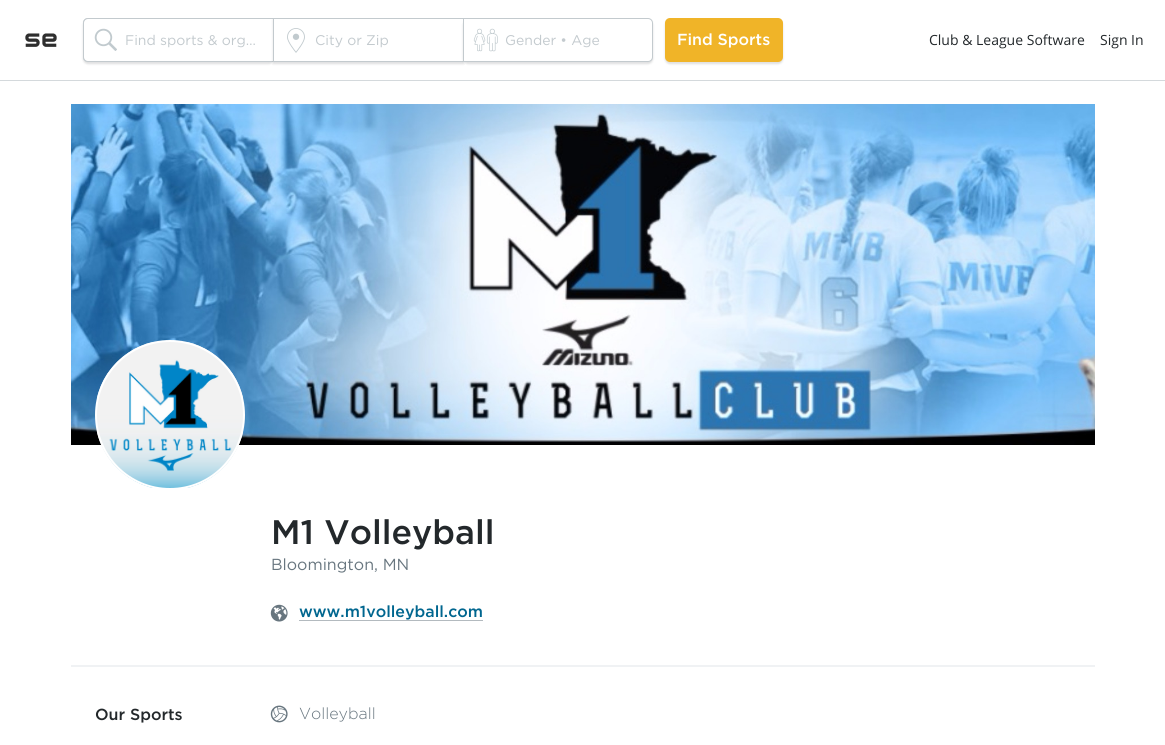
#include <cairo.h>
#include <math.h>
#include <stddef.h>


static void set_color(cairo_t *cr, unsigned color) {
    cairo_set_source_rgb(cr, (color >> 16) / 255.0, (color >> 8 & 255) / 255.0, (color & 255) / 255.0);
}

static void draw_text(cairo_t *cr, double x, double y, const char *s, const char *family, double size, int italic, int bold, unsigned color) {
    cairo_select_font_face(cr, family, italic ? CAIRO_FONT_SLANT_ITALIC : CAIRO_FONT_SLANT_NORMAL,
        bold ? CAIRO_FONT_WEIGHT_BOLD : CAIRO_FONT_WEIGHT_NORMAL);
    cairo_set_font_size(cr, size);
    set_color(cr, color);
    cairo_move_to(cr, x, y);
    cairo_show_text(cr, s);
}

static void fill_rect(cairo_t *cr, double x, double y, double w, double h, unsigned color) {
    set_color(cr, color);
    cairo_rectangle(cr, x, y, w, h);
    cairo_fill(cr);
}

static void rounded_rect(cairo_t *cr, double x, double y, double w, double h, double r) {
    cairo_new_sub_path(cr);
    cairo_arc(cr, x + w - r, y + h - r, r, 0, M_PI / 2);
    cairo_arc(cr, x + r, y + h - r, r, M_PI / 2, M_PI);
    cairo_arc(cr, x + r, y + r, r, M_PI, 1.5 * M_PI);
    cairo_arc(cr, x + w - r, y + r, r, 1.5 * M_PI, 2 * M_PI);
    cairo_close_path(cr);
}

static void draw_shadow(cairo_t *cr, double x, double y, double w, double h, double r, double blur, double alpha) {
    cairo_push_group_with_content(cr, CAIRO_CONTENT_ALPHA);
    cairo_set_operator(cr, CAIRO_OPERATOR_SOURCE);
    for (int i = 15; i >= -15 && fmin(w, h) + blur * i / 3 > 0; i -= 2) {
        double e = blur * i / 6;
        cairo_set_source_rgba(cr, 0, 0, 0, alpha * erfc((i - 1) / 8.5) / 2);
        rounded_rect(cr, x - e, y - e, w + 2 * e, h + 2 * e, fmax(0, fmin(r + e + blur * .6, fmin(w, h) / 2 + e)));
        cairo_fill(cr);
    }
    cairo_pattern_t *soft = cairo_pop_group(cr);
    cairo_mask(cr, soft);
    cairo_pattern_destroy(soft);
}

static void draw_image(cairo_t *cr, const char *path, double x, double y, double w, double h) {
    cairo_surface_t *image = cairo_image_surface_create_from_png(path);
    cairo_save(cr);
    cairo_set_source_surface(cr, image, x, y);
    cairo_rectangle(cr, x, y, w, h);
    cairo_fill(cr);
    cairo_restore(cr);
    cairo_surface_destroy(image);
}

int main(void) {
    cairo_surface_t *surface = cairo_image_surface_create(CAIRO_FORMAT_RGB24, 1165, 745);
    cairo_t *cr = cairo_create(surface);
    cairo_font_options_t *options = cairo_font_options_create();
    cairo_font_options_set_hint_metrics(options, CAIRO_HINT_METRICS_OFF);
    cairo_font_options_set_hint_style(options, CAIRO_HINT_STYLE_NONE);
    cairo_set_font_options(cr, options);
    cairo_set_miter_limit(cr, 4);
    set_color(cr, 0xFFFFFF);
    cairo_paint(cr);
    cairo_rectangle(cr, -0.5, -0.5, 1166, 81);
    set_color(cr, 0xD4D9DC);
    cairo_set_line_width(cr, 1);
    cairo_stroke(cr);
    draw_image(cr, "assets/img1.png", 25, 33, 32, 14);
    set_color(cr, 0x23282B);
    draw_shadow(cr, 83, 20, 191, 44, 5, 1, 0.15);
    cairo_new_path(cr);
    cairo_move_to(cr, 88, 18.5);
    cairo_line_to(cr, 273.5, 18.5);
    cairo_line_to(cr, 273.5, 61.5);
    cairo_line_to(cr, 88, 61.5);
    cairo_curve_to(cr, 85.5, 61.5, 83.5, 59.5, 83.5, 57);
    cairo_line_to(cr, 83.5, 23);
    cairo_curve_to(cr, 83.5, 20.5, 85.5, 18.5, 88, 18.5);
    cairo_close_path(cr);
    set_color(cr, 0xC3CACE);
    cairo_stroke(cr);
    set_color(cr, 0xFFFFFF);
    cairo_new_path(cr);
    cairo_move_to(cr, 88, 18.5);
    cairo_line_to(cr, 273.5, 18.5);
    cairo_line_to(cr, 273.5, 61.5);
    cairo_line_to(cr, 88, 61.5);
    cairo_curve_to(cr, 85.5, 61.5, 83.5, 59.5, 83.5, 57);
    cairo_line_to(cr, 83.5, 23);
    cairo_curve_to(cr, 83.5, 20.5, 85.5, 18.5, 88, 18.5);
    cairo_close_path(cr);
    cairo_fill_preserve(cr);
    set_color(cr, 0xC3CACE);
    cairo_stroke(cr);
    draw_image(cr, "assets/img2.png", 94, 28, 23, 23);
    draw_text(cr, 125, 45, "Find sports & org…", "Gotham", 14, 0, 0, 0xC3CACE);
    set_color(cr, 0x23282B);
    draw_shadow(cr, 273, 20, 191, 44, 0, 1, 0.15);
    set_color(cr, 0xFFFFFF);
    cairo_rectangle(cr, 273.5, 18.5, 190, 43);
    cairo_fill_preserve(cr);
    set_color(cr, 0xC3CACE);
    cairo_stroke(cr);
    draw_image(cr, "assets/img3.png", 287, 28, 18, 25);
    draw_text(cr, 315, 45, "City or Zip", "Gotham", 14, 0, 0, 0xC3CACE);
    set_color(cr, 0x23282B);
    draw_shadow(cr, 463, 20, 190, 44, 5, 1, 0.15);
    set_color(cr, 0xFFFFFF);
    cairo_new_path(cr);
    cairo_move_to(cr, 463.5, 18.5);
    cairo_line_to(cr, 648, 18.5);
    cairo_curve_to(cr, 650.5, 18.5, 652.5, 20.5, 652.5, 23);
    cairo_line_to(cr, 652.5, 57);
    cairo_curve_to(cr, 652.5, 59.5, 650.5, 61.5, 648, 61.5);
    cairo_line_to(cr, 463.5, 61.5);
    cairo_close_path(cr);
    cairo_fill_preserve(cr);
    set_color(cr, 0xC3CACE);
    cairo_stroke(cr);
    draw_image(cr, "assets/img4.png", 473, 28, 25, 24);
    draw_text(cr, 505, 45, "Gender • Age", "Gotham", 14, 0, 0, 0xC3CACE);
    set_color(cr, 0x23282B);
    draw_shadow(cr, 665, 20, 118, 44, 5, 1, 0.15);
    set_color(cr, 0xF0B428);
    rounded_rect(cr, 665, 18, 118, 44, 5);
    cairo_fill(cr);
    draw_text(cr, 677, 45, "Find Sports", "Gotham Medium", 16, 0, 0, 0xFFFFFF);
    draw_text(cr, 929, 45, "Club & League Software", "Open Sans", 14, 0, 0, 0x23282B);
    draw_text(cr, 1100, 45, "Sign In", "Open Sans", 14, 0, 0, 0x23282B);
    draw_image(cr, "assets/img5.png", 71, 104, 1024, 341);
    draw_image(cr, "assets/img6.png", 97, 342, 146, 146);
    cairo_arc(cr, 170, 415, 74, 0, 2 * M_PI);
    set_color(cr, 0xFFFFFF);
    cairo_set_line_width(cr, 2);
    cairo_stroke(cr);
    draw_text(cr, 271, 544, "M1 Volleyball", "Gotham Medium", 34, 0, 0, 0x23282B);
    draw_text(cr, 271, 570, "Bloomington, MN", "Gotham", 16, 0, 0, 0x68767F);
    draw_image(cr, "assets/img7.png", 270, 604, 18, 18);
    draw_text(cr, 299, 617, "www.m1volleyball.com", "Gotham Medium", 16, 0, 0, 0x00668F);
    cairo_new_path(cr);
    cairo_move_to(cr, 299.5, 620.5);
    cairo_line_to(cr, 483.5, 620.5);
    set_color(cr, 0x68767F);
    cairo_set_line_width(cr, 1);
    cairo_set_dash(cr, (double[]){1, 1}, 2, 0);
    cairo_stroke(cr);
    fill_rect(cr, 71, 665, 1024, 2, 0xF0F2F4);
    draw_text(cr, 95, 720, "Our Sports", "Gotham Medium", 16, 0, 0, 0x23282B);
    draw_image(cr, "assets/img8.png", 270, 705, 18, 18);
    draw_text(cr, 299, 719, "Volleyball", "Gotham Light", 16, 0, 0, 0x68767F);
    cairo_surface_write_to_png(surface, "output.png");
    cairo_font_options_destroy(options);
    cairo_destroy(cr);
    cairo_surface_destroy(surface);
    return 0;
}
